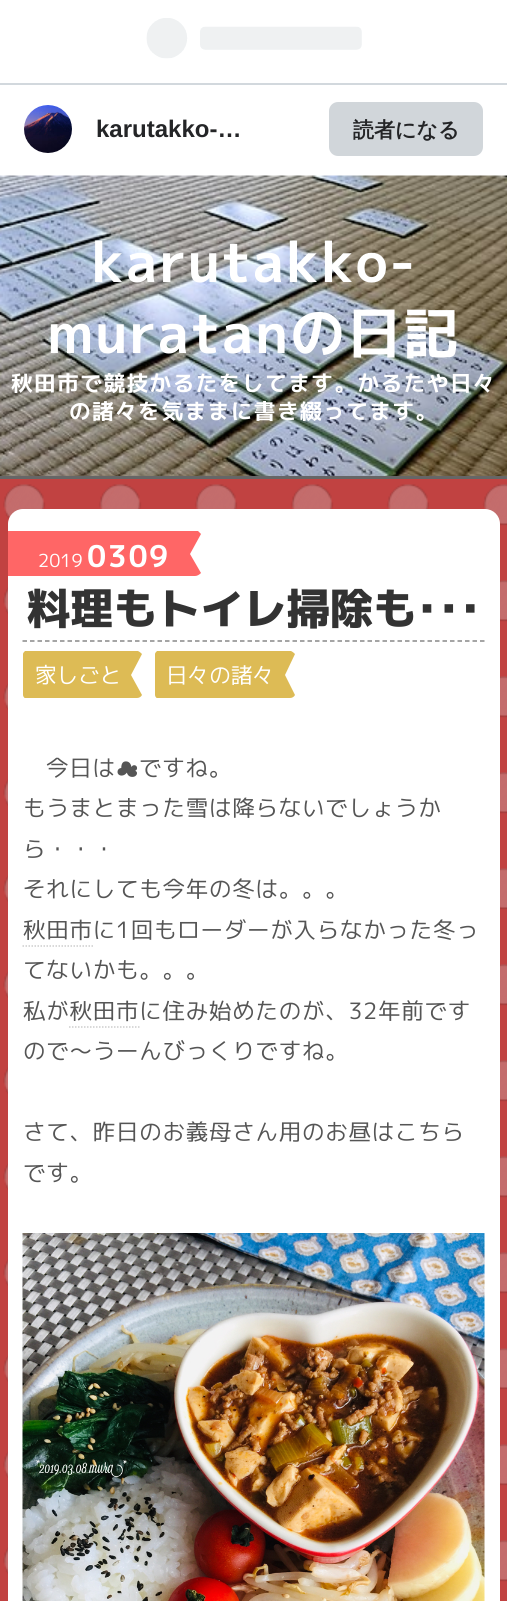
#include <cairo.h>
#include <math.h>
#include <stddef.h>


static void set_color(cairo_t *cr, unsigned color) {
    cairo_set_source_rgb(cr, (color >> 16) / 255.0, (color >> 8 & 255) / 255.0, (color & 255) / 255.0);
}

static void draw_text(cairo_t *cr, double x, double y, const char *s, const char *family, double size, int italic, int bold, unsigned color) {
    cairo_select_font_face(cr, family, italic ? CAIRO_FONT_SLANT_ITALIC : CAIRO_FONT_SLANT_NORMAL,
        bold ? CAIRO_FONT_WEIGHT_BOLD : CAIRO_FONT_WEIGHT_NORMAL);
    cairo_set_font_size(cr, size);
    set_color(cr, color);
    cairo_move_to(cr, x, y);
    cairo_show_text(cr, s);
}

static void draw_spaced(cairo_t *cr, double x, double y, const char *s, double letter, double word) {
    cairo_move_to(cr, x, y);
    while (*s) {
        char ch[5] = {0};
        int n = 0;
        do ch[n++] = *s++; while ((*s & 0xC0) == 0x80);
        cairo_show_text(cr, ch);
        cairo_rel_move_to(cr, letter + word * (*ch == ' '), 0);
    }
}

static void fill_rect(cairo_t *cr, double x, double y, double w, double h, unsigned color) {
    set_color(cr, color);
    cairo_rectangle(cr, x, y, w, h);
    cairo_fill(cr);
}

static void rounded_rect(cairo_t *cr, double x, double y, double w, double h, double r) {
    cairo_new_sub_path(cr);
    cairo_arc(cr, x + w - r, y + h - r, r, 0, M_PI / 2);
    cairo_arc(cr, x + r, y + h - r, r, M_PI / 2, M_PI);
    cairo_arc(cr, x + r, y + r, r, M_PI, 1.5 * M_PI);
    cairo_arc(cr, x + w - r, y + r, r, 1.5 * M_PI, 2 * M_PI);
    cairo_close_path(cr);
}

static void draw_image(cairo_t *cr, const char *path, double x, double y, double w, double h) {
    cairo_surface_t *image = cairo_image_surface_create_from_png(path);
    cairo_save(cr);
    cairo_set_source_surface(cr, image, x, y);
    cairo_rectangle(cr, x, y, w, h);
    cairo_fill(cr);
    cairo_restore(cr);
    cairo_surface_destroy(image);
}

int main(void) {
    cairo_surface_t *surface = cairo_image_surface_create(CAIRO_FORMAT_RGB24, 507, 1601);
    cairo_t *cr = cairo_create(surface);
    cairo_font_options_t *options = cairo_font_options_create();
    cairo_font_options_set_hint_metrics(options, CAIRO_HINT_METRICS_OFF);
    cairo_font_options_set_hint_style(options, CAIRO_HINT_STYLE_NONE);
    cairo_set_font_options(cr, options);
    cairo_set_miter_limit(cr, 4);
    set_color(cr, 0xC14241);
    cairo_paint(cr);
    fill_rect(cr, 0, 0, 507, 83, 0xFFFFFF);
    fill_rect(cr, 0, 83, 507, 2, 0xD2D8DD);
    draw_image(cr, "assets/img1.png", 146, 18, 216, 41);
    fill_rect(cr, 0, 85, 507, 91, 0xFFFFFF);
    draw_image(cr, "assets/img2.png", 24, 105, 48, 48);
    draw_text(cr, 96, 137, "karutakko-…", "Liberation Sans", 24, 0, 1, 0x242527);
    set_color(cr, 0xD1D6DA);
    rounded_rect(cr, 329, 102, 154, 54, 9);
    cairo_fill(cr);
    draw_text(cr, 353, 137, "読者になる", "WenQuanYi Zen Hei", 21, 0, 1, 0x242527);
    draw_image(cr, "assets/img3.png", 0, 175, 507, 301);
    fill_rect(cr, 0, 476, 507, 3, 0x666666);
    cairo_select_font_face(cr, "M PLUS 1p", CAIRO_FONT_SLANT_NORMAL, CAIRO_FONT_WEIGHT_BOLD);
    cairo_set_font_size(cr, 55.25);
    set_color(cr, 0xFFFFFF);
    draw_spaced(cr, 91, 282, "karutakko-", 1.5, 0);
    draw_spaced(cr, 47, 353, "muratanの日記", 1.5, 0);
    cairo_set_font_size(cr, 21.6);
    draw_spaced(cr, 11, 391, "秋田市で競技かるたをしてます。かるたや日々", 1.5, 0);
    draw_spaced(cr, 69, 419, "の諸々を気ままに書き綴ってます。", 1.5, 0);
    draw_image(cr, "assets/img5.png", 3, 484, 504, 1098);
    rounded_rect(cr, 8, 509, 492, 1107, 15);
    cairo_fill(cr);
    set_color(cr, 0xFF6666);
    cairo_new_path(cr);
    cairo_move_to(cr, 201, 573);
    cairo_curve_to(cr, 199, 575, 197, 576, 195, 576);
    cairo_line_to(cr, 8, 576);
    cairo_line_to(cr, 8, 531);
    cairo_line_to(cr, 198, 531);
    cairo_line_to(cr, 201, 534);
    cairo_line_to(cr, 190, 554);
    cairo_close_path(cr);
    cairo_fill(cr);
    draw_text(cr, 38, 567, "2019", "M PLUS 1p", 18, 0, 0, 0xFFFFFF);
    cairo_select_font_face(cr, "M PLUS 1p", CAIRO_FONT_SLANT_NORMAL, CAIRO_FONT_WEIGHT_BOLD);
    cairo_set_font_size(cr, 30);
    draw_spaced(cr, 87, 567, "0309", 1.5, 0);
    cairo_new_path(cr);
    cairo_move_to(cr, 22.5, 641);
    cairo_line_to(cr, 484.5, 641);
    set_color(cr, 0x888888);
    cairo_set_line_width(cr, 1.5);
    cairo_set_dash(cr, (double[]){4.5, 3}, 2, 0);
    cairo_stroke(cr);
    draw_text(cr, 27, 624, "料理もトイレ掃除も･･･", "M PLUS 1p ExtraBold", 43.25, 0, 0, 0x333333);
    set_color(cr, 0xDDBB55);
    cairo_new_path(cr);
    cairo_move_to(cr, 25, 698);
    cairo_curve_to(cr, 24, 698, 23, 696, 23, 695);
    cairo_line_to(cr, 23, 654);
    cairo_curve_to(cr, 23, 653, 24, 652, 25, 651);
    cairo_line_to(cr, 138, 651);
    cairo_curve_to(cr, 140, 652, 141, 653, 142, 654);
    cairo_line_to(cr, 131, 675);
    cairo_line_to(cr, 142, 695);
    cairo_curve_to(cr, 141, 697, 139, 698, 137, 698);
    cairo_close_path(cr);
    cairo_fill(cr);
    draw_text(cr, 35, 683, "家しごと", "M PLUS 1p", 21.6, 0, 0, 0xFFFFFF);
    set_color(cr, 0xDDBB55);
    cairo_new_path(cr);
    cairo_move_to(cr, 157, 698);
    cairo_curve_to(cr, 156, 698, 155, 696, 155, 695);
    cairo_line_to(cr, 155, 654);
    cairo_curve_to(cr, 155, 653, 156, 652, 157, 651);
    cairo_line_to(cr, 291, 651);
    cairo_curve_to(cr, 293, 652, 294, 653, 295, 654);
    cairo_line_to(cr, 285, 675);
    cairo_line_to(cr, 295, 695);
    cairo_curve_to(cr, 294, 697, 292, 698, 290, 698);
    cairo_close_path(cr);
    cairo_fill(cr);
    draw_text(cr, 166, 683, "日々の諸々", "M PLUS 1p", 21.6, 0, 0, 0xFFFFFF);
    cairo_set_font_size(cr, 22.5);
    set_color(cr, 0x555555);
    draw_spaced(cr, 46, 776, "今日は", 0.75, 0);
    cairo_select_font_face(cr, "IPAPGothic", CAIRO_FONT_SLANT_NORMAL, CAIRO_FONT_WEIGHT_NORMAL);
    draw_spaced(cr, 116, 776, "☁", 0.75, 0);
    cairo_select_font_face(cr, "M PLUS 1p", CAIRO_FONT_SLANT_NORMAL, CAIRO_FONT_WEIGHT_NORMAL);
    draw_spaced(cr, 139, 776, "ですね。", 0.75, 0);
    draw_spaced(cr, 23, 816, "もうまとまった雪は降らないでしょうか", 0.75, 0);
    draw_spaced(cr, 23, 857, "ら・・・", 0.75, 0);
    draw_spaced(cr, 23, 897, "それにしても今年の冬は。。。", 0.75, 0);
    draw_spaced(cr, 23, 938, "秋田市に1回もローダーが入らなかった冬っ", 0.75, 0);
    cairo_new_path(cr);
    cairo_move_to(cr, 22.5, 946);
    cairo_line_to(cr, 93, 946);
    set_color(cr, 0xCCCCCC);
    cairo_set_dash(cr, (double[]){1.5, 1.5}, 2, 0);
    cairo_stroke(cr);
    set_color(cr, 0x555555);
    draw_spaced(cr, 23, 978, "てないかも。。。", 0.75, 0);
    draw_spaced(cr, 23, 1019, "私が秋田市に住み始めたのが、32年前です", 0.75, 0);
    cairo_new_path(cr);
    cairo_move_to(cr, 69, 1027);
    cairo_line_to(cr, 139.5, 1027);
    set_color(cr, 0xCCCCCC);
    cairo_stroke(cr);
    set_color(cr, 0x555555);
    draw_spaced(cr, 23, 1059, "ので～うーんびっくりですね。", 0.75, 0);
    draw_spaced(cr, 23, 1140, "さて、昨日のお義母さん用のお昼はこちら", 0.75, 0);
    draw_spaced(cr, 23, 1181, "です。", 0.75, 0);
    draw_image(cr, "assets/img4.png", 22, 1233, 463, 368);
    cairo_surface_write_to_png(surface, "output.png");
    cairo_font_options_destroy(options);
    cairo_destroy(cr);
    cairo_surface_destroy(surface);
    return 0;
}
